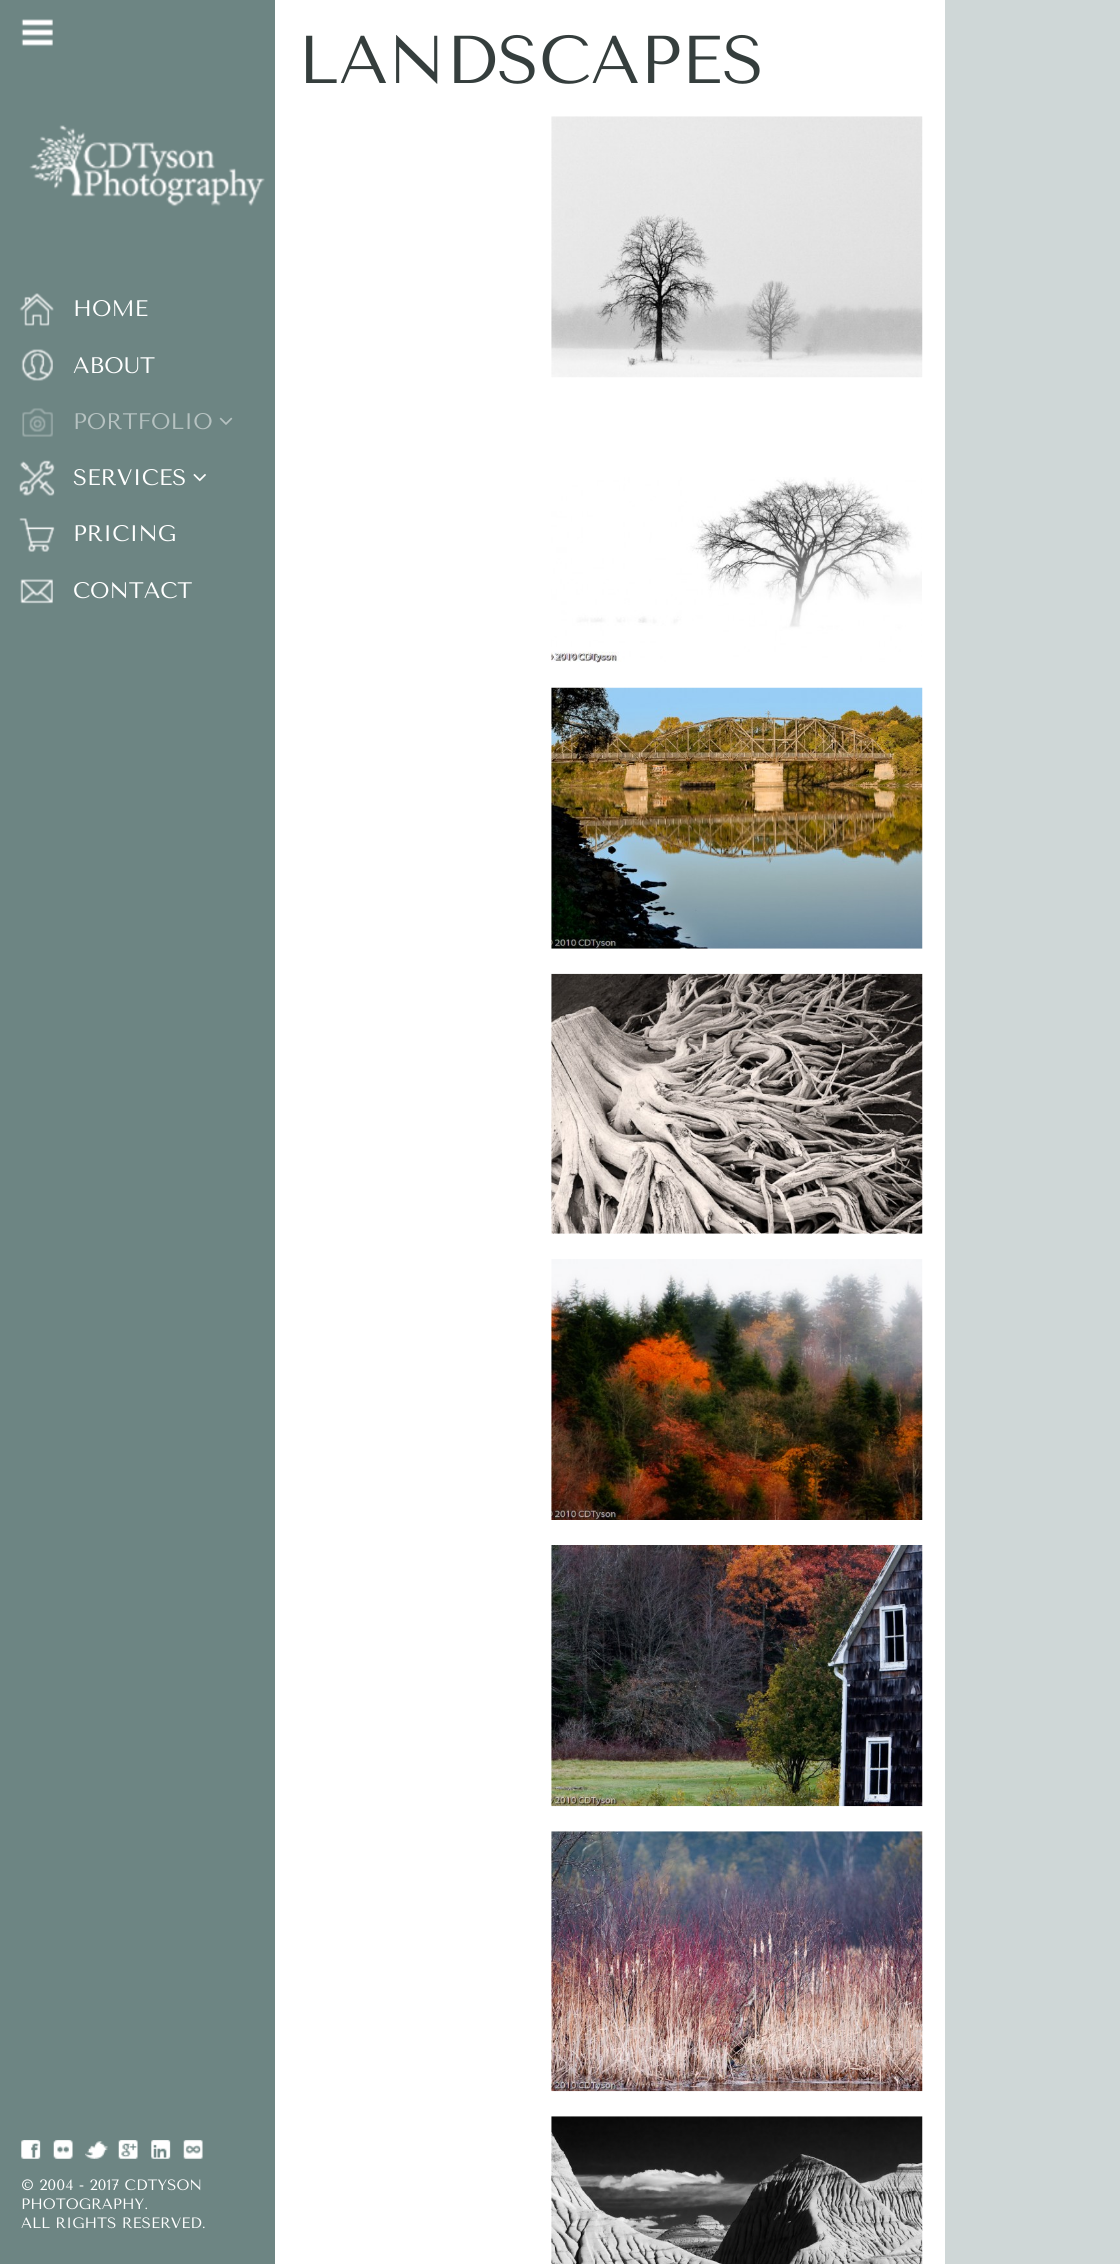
#include <cairo.h>
#include <math.h>
#include <stddef.h>


static void set_color(cairo_t *cr, unsigned color) {
    cairo_set_source_rgb(cr, (color >> 16) / 255.0, (color >> 8 & 255) / 255.0, (color & 255) / 255.0);
}

static void draw_text(cairo_t *cr, double x, double y, const char *s, const char *family, double size, int italic, int bold, unsigned color) {
    cairo_select_font_face(cr, family, italic ? CAIRO_FONT_SLANT_ITALIC : CAIRO_FONT_SLANT_NORMAL,
        bold ? CAIRO_FONT_WEIGHT_BOLD : CAIRO_FONT_WEIGHT_NORMAL);
    cairo_set_font_size(cr, size);
    set_color(cr, color);
    cairo_move_to(cr, x, y);
    cairo_show_text(cr, s);
}

static void fill_rect(cairo_t *cr, double x, double y, double w, double h, unsigned color) {
    set_color(cr, color);
    cairo_rectangle(cr, x, y, w, h);
    cairo_fill(cr);
}

static void draw_image(cairo_t *cr, const char *path, double x, double y, double w, double h) {
    cairo_surface_t *image = cairo_image_surface_create_from_png(path);
    cairo_save(cr);
    cairo_set_source_surface(cr, image, x, y);
    cairo_rectangle(cr, x, y, w, h);
    cairo_fill(cr);
    cairo_restore(cr);
    cairo_surface_destroy(image);
}

int main(void) {
    cairo_surface_t *surface = cairo_image_surface_create(CAIRO_FORMAT_RGB24, 1120, 2264);
    cairo_t *cr = cairo_create(surface);
    cairo_font_options_t *options = cairo_font_options_create();
    cairo_font_options_set_hint_metrics(options, CAIRO_HINT_METRICS_OFF);
    cairo_font_options_set_hint_style(options, CAIRO_HINT_STYLE_NONE);
    cairo_set_font_options(cr, options);
    cairo_set_miter_limit(cr, 4);
    set_color(cr, 0xCFD7D7);
    cairo_paint(cr);
    fill_rect(cr, 275, 0, 670, 2264, 0xFFFFFF);
    draw_text(cr, 298, 83, "LANDSCAPES", "Tenor Sans", 67.5, 0, 0, 0x353E3D);
    draw_image(cr, "assets/img1.png", 551, 116, 372, 262);
    draw_image(cr, "assets/img2.png", 551, 477, 371, 186);
    draw_image(cr, "assets/img3.png", 551, 687, 372, 262);
    draw_image(cr, "assets/img4.png", 551, 973, 372, 261);
    draw_image(cr, "assets/img5.png", 551, 1259, 372, 261);
    draw_image(cr, "assets/img6.png", 551, 1545, 372, 262);
    draw_image(cr, "assets/img7.png", 551, 1831, 372, 261);
    draw_image(cr, "assets/img8.png", 551, 2116, 372, 148);
    fill_rect(cr, 0, 0, 275, 2264, 0x6D8583);
    draw_image(cr, "assets/img9.png", 21, 19, 32, 27);
    draw_image(cr, "assets/img10.png", 29, 125, 236, 82);
    draw_image(cr, "assets/img11.png", 19, 293, 35, 33);
    draw_text(cr, 73, 316, "HOME", "Tenor Sans", 22.5, 0, 0, 0xFFFFFF);
    draw_image(cr, "assets/img12.png", 21, 349, 32, 32);
    draw_text(cr, 73, 373, "ABOUT", "Tenor Sans", 22.5, 0, 0, 0xFFFFFF);
    draw_image(cr, "assets/img13.png", 22, 408, 31, 29);
    draw_text(cr, 73, 429, "PORTFOLIO", "Tenor Sans", 22.5, 0, 0, 0xB6C2C1);
    draw_image(cr, "assets/img14.png", 219, 417, 14, 8);
    draw_image(cr, "assets/img15.png", 19, 460, 36, 36);
    draw_text(cr, 73, 485, "SERVICES", "Tenor Sans", 22.5, 0, 0, 0xFFFFFF);
    draw_image(cr, "assets/img16.png", 193, 474, 13, 8);
    draw_image(cr, "assets/img17.png", 19, 518, 36, 34);
    draw_text(cr, 73, 541, "PRICING", "Tenor Sans", 22.5, 0, 0, 0xFFFFFF);
    draw_image(cr, "assets/img18.png", 20, 579, 33, 25);
    draw_text(cr, 73, 598, "CONTACT", "Tenor Sans", 22.5, 0, 0, 0xFFFFFF);
    draw_image(cr, "assets/img19.png", 21, 2140, 20, 19);
    draw_image(cr, "assets/img20.png", 53, 2140, 20, 19);
    draw_image(cr, "assets/img21.png", 85, 2141, 23, 18);
    draw_image(cr, "assets/img22.png", 118, 2140, 20, 19);
    draw_image(cr, "assets/img23.png", 151, 2140, 20, 19);
    draw_image(cr, "assets/img24.png", 183, 2140, 20, 19);
    draw_text(cr, 21, 2190, "© 2004 - 2017 CDTYSON", "Tenor Sans", 15, 0, 0, 0xFFFFFF);
    draw_text(cr, 21, 2209, "PHOTOGRAPHY.", "Tenor Sans", 15, 0, 0, 0xFFFFFF);
    draw_text(cr, 21, 2228, "ALL RIGHTS RESERVED.", "Tenor Sans", 15, 0, 0, 0xFFFFFF);
    cairo_surface_write_to_png(surface, "output.png");
    cairo_font_options_destroy(options);
    cairo_destroy(cr);
    cairo_surface_destroy(surface);
    return 0;
}
